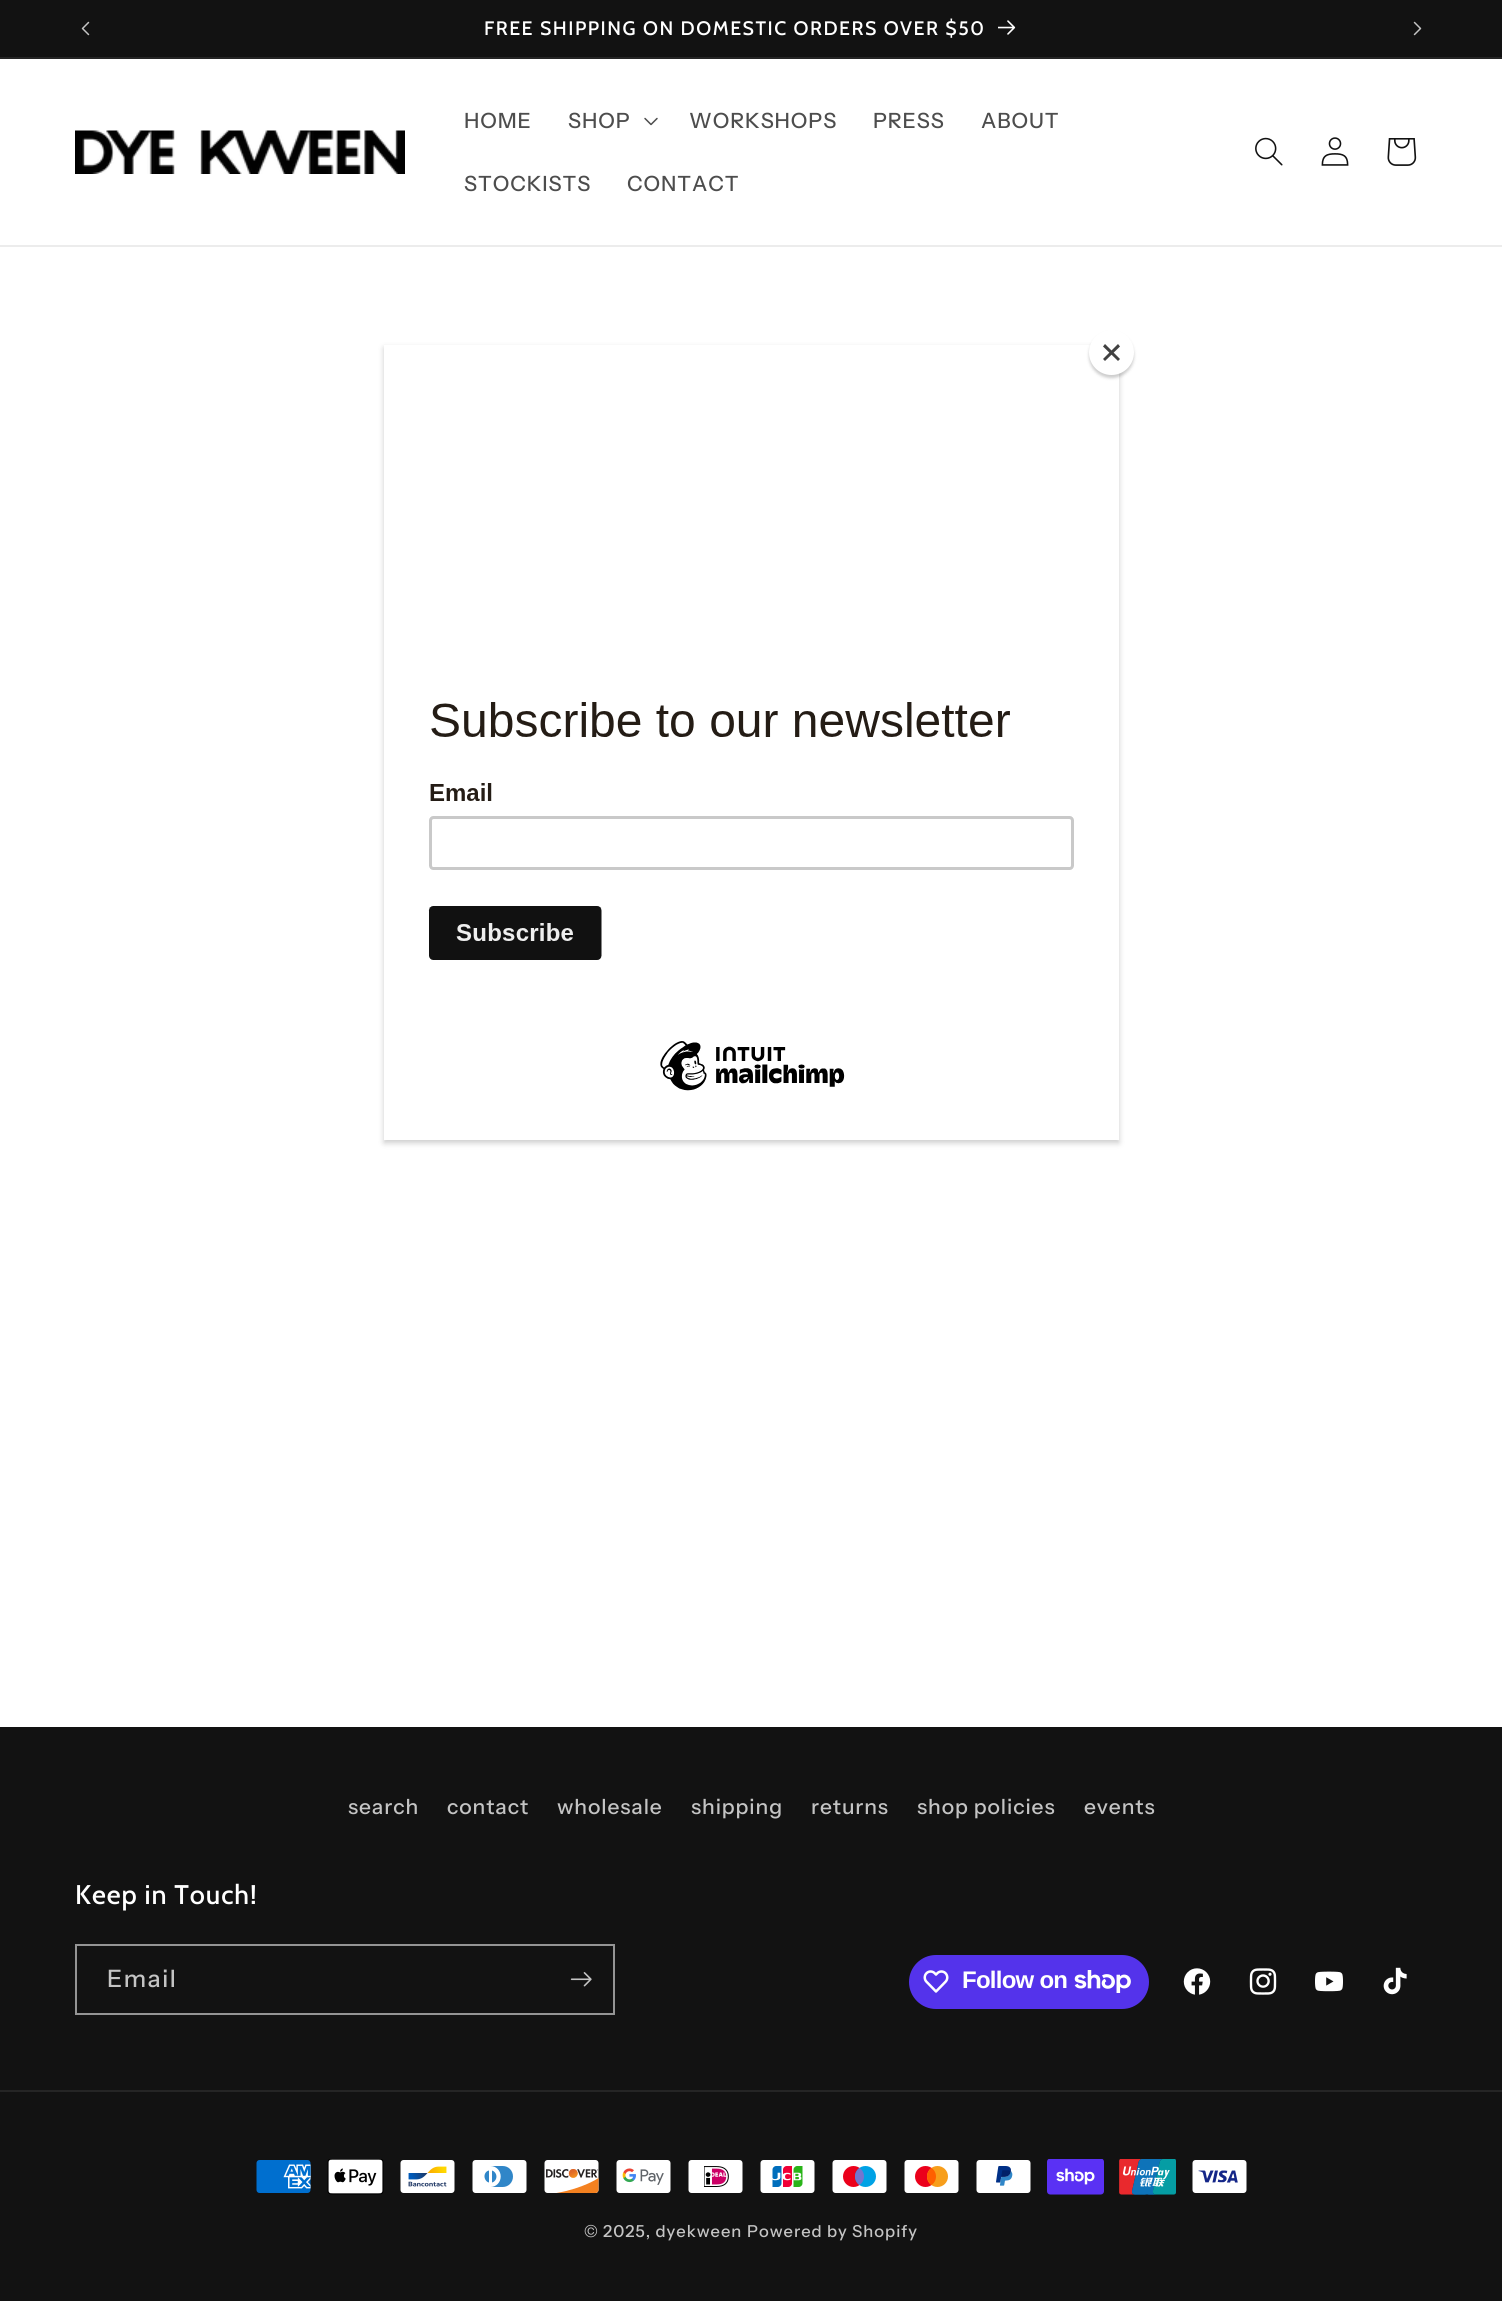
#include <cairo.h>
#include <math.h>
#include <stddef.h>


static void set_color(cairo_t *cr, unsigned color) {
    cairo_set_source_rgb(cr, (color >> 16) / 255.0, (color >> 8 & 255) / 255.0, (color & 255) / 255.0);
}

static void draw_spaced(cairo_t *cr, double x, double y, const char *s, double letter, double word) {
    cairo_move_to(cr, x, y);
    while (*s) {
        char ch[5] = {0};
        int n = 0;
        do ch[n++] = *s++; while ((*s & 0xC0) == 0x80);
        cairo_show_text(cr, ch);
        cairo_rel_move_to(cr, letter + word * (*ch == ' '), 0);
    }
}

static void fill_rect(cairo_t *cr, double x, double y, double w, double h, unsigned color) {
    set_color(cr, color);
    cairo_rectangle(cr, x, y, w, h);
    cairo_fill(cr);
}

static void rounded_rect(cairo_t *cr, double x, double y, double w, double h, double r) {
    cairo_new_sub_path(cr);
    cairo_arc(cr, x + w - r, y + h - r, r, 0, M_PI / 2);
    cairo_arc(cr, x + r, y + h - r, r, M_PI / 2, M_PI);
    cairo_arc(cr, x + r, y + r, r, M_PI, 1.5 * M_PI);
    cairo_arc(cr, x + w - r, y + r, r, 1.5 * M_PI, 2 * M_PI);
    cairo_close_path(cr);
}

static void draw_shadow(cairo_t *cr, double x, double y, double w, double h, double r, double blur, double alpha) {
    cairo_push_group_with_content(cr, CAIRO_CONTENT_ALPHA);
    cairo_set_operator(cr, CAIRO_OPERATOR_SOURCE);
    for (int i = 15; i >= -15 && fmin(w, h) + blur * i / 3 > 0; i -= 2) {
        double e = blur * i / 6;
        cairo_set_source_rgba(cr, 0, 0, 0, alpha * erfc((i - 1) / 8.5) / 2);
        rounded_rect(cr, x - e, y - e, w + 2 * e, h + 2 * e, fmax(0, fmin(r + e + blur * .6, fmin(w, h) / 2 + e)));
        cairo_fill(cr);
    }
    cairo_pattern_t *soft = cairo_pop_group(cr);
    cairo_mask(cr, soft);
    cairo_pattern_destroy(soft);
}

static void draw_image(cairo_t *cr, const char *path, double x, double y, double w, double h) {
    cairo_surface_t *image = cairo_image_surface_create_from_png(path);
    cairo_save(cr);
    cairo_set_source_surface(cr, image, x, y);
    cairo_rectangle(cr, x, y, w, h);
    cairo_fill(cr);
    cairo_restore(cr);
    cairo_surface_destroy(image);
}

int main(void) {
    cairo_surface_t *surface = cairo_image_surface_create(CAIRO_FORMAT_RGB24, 1502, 2301);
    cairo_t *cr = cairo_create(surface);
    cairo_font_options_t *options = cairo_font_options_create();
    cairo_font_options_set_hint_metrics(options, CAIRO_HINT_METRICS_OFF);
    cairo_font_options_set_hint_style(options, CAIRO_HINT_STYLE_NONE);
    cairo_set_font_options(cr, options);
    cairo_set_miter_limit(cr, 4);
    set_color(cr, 0xFFFFFF);
    cairo_paint(cr);
    fill_rect(cr, 0, 0, 1502, 57, 0x121212);
    fill_rect(cr, 0, 57, 1502, 2, 0x252525);
    draw_image(cr, "assets/img1.png", 81, 21, 9, 15);
    cairo_select_font_face(cr, "Cabin Medium", CAIRO_FONT_SLANT_NORMAL, CAIRO_FONT_WEIGHT_NORMAL);
    cairo_set_font_size(cr, 19.5);
    set_color(cr, 0xFFFFFF);
    draw_spaced(cr, 484, 35, "FREE SHIPPING ON DOMESTIC ORDERS OVER $50", 1.5, 0);
    draw_image(cr, "assets/img2.png", 998, 20, 18, 15);
    draw_image(cr, "assets/img3.png", 1413, 21, 9, 15);
    fill_rect(cr, 0, 245, 1502, 2, 0xECECEC);
    draw_image(cr, "assets/img4.png", 75, 130, 330, 44);
    cairo_select_font_face(cr, "Instrument Sans Medium", CAIRO_FONT_SLANT_NORMAL, CAIRO_FONT_WEIGHT_NORMAL);
    cairo_set_font_size(cr, 21);
    set_color(cr, 0x4D4D4D);
    draw_spaced(cr, 464, 128, "HOME", 0.9, 0);
    draw_spaced(cr, 568, 128, "SHOP", 0.9, 0);
    draw_image(cr, "assets/img5.png", 644, 117, 14, 9);
    draw_spaced(cr, 689, 128, "WORKSHOPS", 0.9, 0);
    draw_spaced(cr, 873, 128, "PRESS", 0.9, 0);
    draw_spaced(cr, 981, 128, "ABOUT", 0.9, 0);
    draw_spaced(cr, 464, 191, "STOCKISTS", 0.9, 0);
    draw_spaced(cr, 627, 191, "CONTACT", 0.9, 0);
    draw_image(cr, "assets/img6.png", 1255, 137, 28, 29);
    draw_image(cr, "assets/img7.png", 1321, 137, 28, 29);
    draw_image(cr, "assets/img8.png", 1387, 138, 30, 28);
    set_color(cr, 0x000000);
    draw_shadow(cr, 1089, 333, 45, 45, 22.5, 1.5, 0.2);
    cairo_save(cr);
    cairo_set_fill_rule(cr, CAIRO_FILL_RULE_EVEN_ODD);
    cairo_new_path(cr);
    cairo_move_to(cr, 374, 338);
    cairo_line_to(cr, 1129, 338);
    cairo_line_to(cr, 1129, 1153);
    cairo_line_to(cr, 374, 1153);
    cairo_close_path(cr);
    cairo_move_to(cr, 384, 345);
    cairo_line_to(cr, 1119, 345);
    cairo_line_to(cr, 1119, 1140);
    cairo_line_to(cr, 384, 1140);
    cairo_close_path(cr);
    cairo_clip(cr);
    draw_shadow(cr, 384, 348, 735, 795, 0, 3, 0.2);
    cairo_restore(cr);
    set_color(cr, 0xFFFFFF);
    cairo_arc(cr, 1111.5, 352.5, 22.5, 0, 2 * M_PI);
    cairo_fill(cr);
    set_color(cr, 0x414141);
    cairo_new_path(cr);
    cairo_move_to(cr, 1118, 344);
    cairo_line_to(cr, 1120, 346.5);
    cairo_line_to(cr, 1105, 361);
    cairo_line_to(cr, 1103, 359);
    cairo_close_path(cr);
    cairo_fill(cr);
    cairo_new_path(cr);
    cairo_move_to(cr, 1103, 346.5);
    cairo_line_to(cr, 1105, 344);
    cairo_line_to(cr, 1120, 359);
    cairo_line_to(cr, 1118, 361);
    cairo_close_path(cr);
    cairo_fill(cr);
    draw_image(cr, "assets/img9.png", 428, 364, 646, 727);
    fill_rect(cr, 0, 1727, 1502, 574, 0x121212);
    set_color(cr, 0xC4C4C4);
    draw_spaced(cr, 348, 1814, "search", 0.9, 0);
    draw_spaced(cr, 447, 1814, "contact", 0.9, 0);
    draw_spaced(cr, 557, 1814, "wholesale", 0.9, 0);
    draw_spaced(cr, 691, 1814, "shipping", 0.9, 0);
    draw_spaced(cr, 811, 1814, "returns", 0.9, 0);
    draw_spaced(cr, 917, 1814, "shop policies", 0.9, 0);
    draw_spaced(cr, 1084, 1814, "events", 0.9, 0);
    cairo_select_font_face(cr, "Cabin Medium", CAIRO_FONT_SLANT_NORMAL, CAIRO_FONT_WEIGHT_NORMAL);
    cairo_set_font_size(cr, 27);
    set_color(cr, 0xFFFFFF);
    draw_spaced(cr, 75, 1904, "Keep in Touch!", 0.9, 0);
    cairo_rectangle(cr, 76, 1945, 538, 69);
    set_color(cr, 0x949494);
    cairo_stroke(cr);
    cairo_select_font_face(cr, "Instrument Sans Medium", CAIRO_FONT_SLANT_NORMAL, CAIRO_FONT_WEIGHT_NORMAL);
    cairo_set_font_size(cr, 24);
    set_color(cr, 0xC4C4C4);
    draw_spaced(cr, 107, 1987, "Email", 1.5, 0);
    draw_image(cr, "assets/img10.png", 570, 1972, 22, 15);
    set_color(cr, 0x5433EB);
    rounded_rect(cr, 909, 1955, 240, 54, 27);
    cairo_fill(cr);
    draw_image(cr, "assets/img11.png", 923, 1970, 26, 23);
    cairo_select_font_face(cr, "Liberation Sans", CAIRO_FONT_SLANT_NORMAL, CAIRO_FONT_WEIGHT_BOLD);
    set_color(cr, 0xFFFFFF);
    draw_spaced(cr, 962, 1988, "Follow on", -0.75, 0);
    draw_image(cr, "assets/img12.png", 1074, 1970, 57, 23);
    draw_image(cr, "assets/img13.png", 1183, 1968, 28, 27);
    draw_image(cr, "assets/img14.png", 1249, 1968, 28, 27);
    draw_image(cr, "assets/img15.png", 1315, 1971, 28, 21);
    draw_image(cr, "assets/img16.png", 1383, 1967, 24, 28);
    fill_rect(cr, 0, 2090, 1502, 2, 0x252525);
    draw_image(cr, "assets/img17.png", 256, 2160, 55, 33);
    draw_image(cr, "assets/img18.png", 327, 2159, 57, 36);
    draw_image(cr, "assets/img19.png", 400, 2160, 55, 33);
    draw_image(cr, "assets/img20.png", 472, 2160, 55, 33);
    draw_image(cr, "assets/img21.png", 544, 2160, 55, 33);
    draw_image(cr, "assets/img22.png", 616, 2160, 55, 33);
    draw_image(cr, "assets/img23.png", 688, 2160, 55, 33);
    draw_image(cr, "assets/img24.png", 760, 2160, 55, 33);
    draw_image(cr, "assets/img25.png", 832, 2160, 55, 33);
    draw_image(cr, "assets/img26.png", 904, 2160, 55, 33);
    draw_image(cr, "assets/img27.png", 976, 2160, 55, 33);
    draw_image(cr, "assets/img28.png", 1047, 2159, 57, 36);
    draw_image(cr, "assets/img29.png", 1119, 2159, 57, 36);
    draw_image(cr, "assets/img30.png", 1192, 2160, 55, 33);
    cairo_select_font_face(cr, "Instrument Sans Medium", CAIRO_FONT_SLANT_NORMAL, CAIRO_FONT_WEIGHT_NORMAL);
    cairo_set_font_size(cr, 16.5);
    set_color(cr, 0xC4C4C4);
    draw_spaced(cr, 584, 2237, "© 2025, dyekween", 1, 0);
    draw_spaced(cr, 747, 2237, "Powered by Shopify", 1, 0);
    cairo_surface_write_to_png(surface, "output.png");
    cairo_font_options_destroy(options);
    cairo_destroy(cr);
    cairo_surface_destroy(surface);
    return 0;
}
